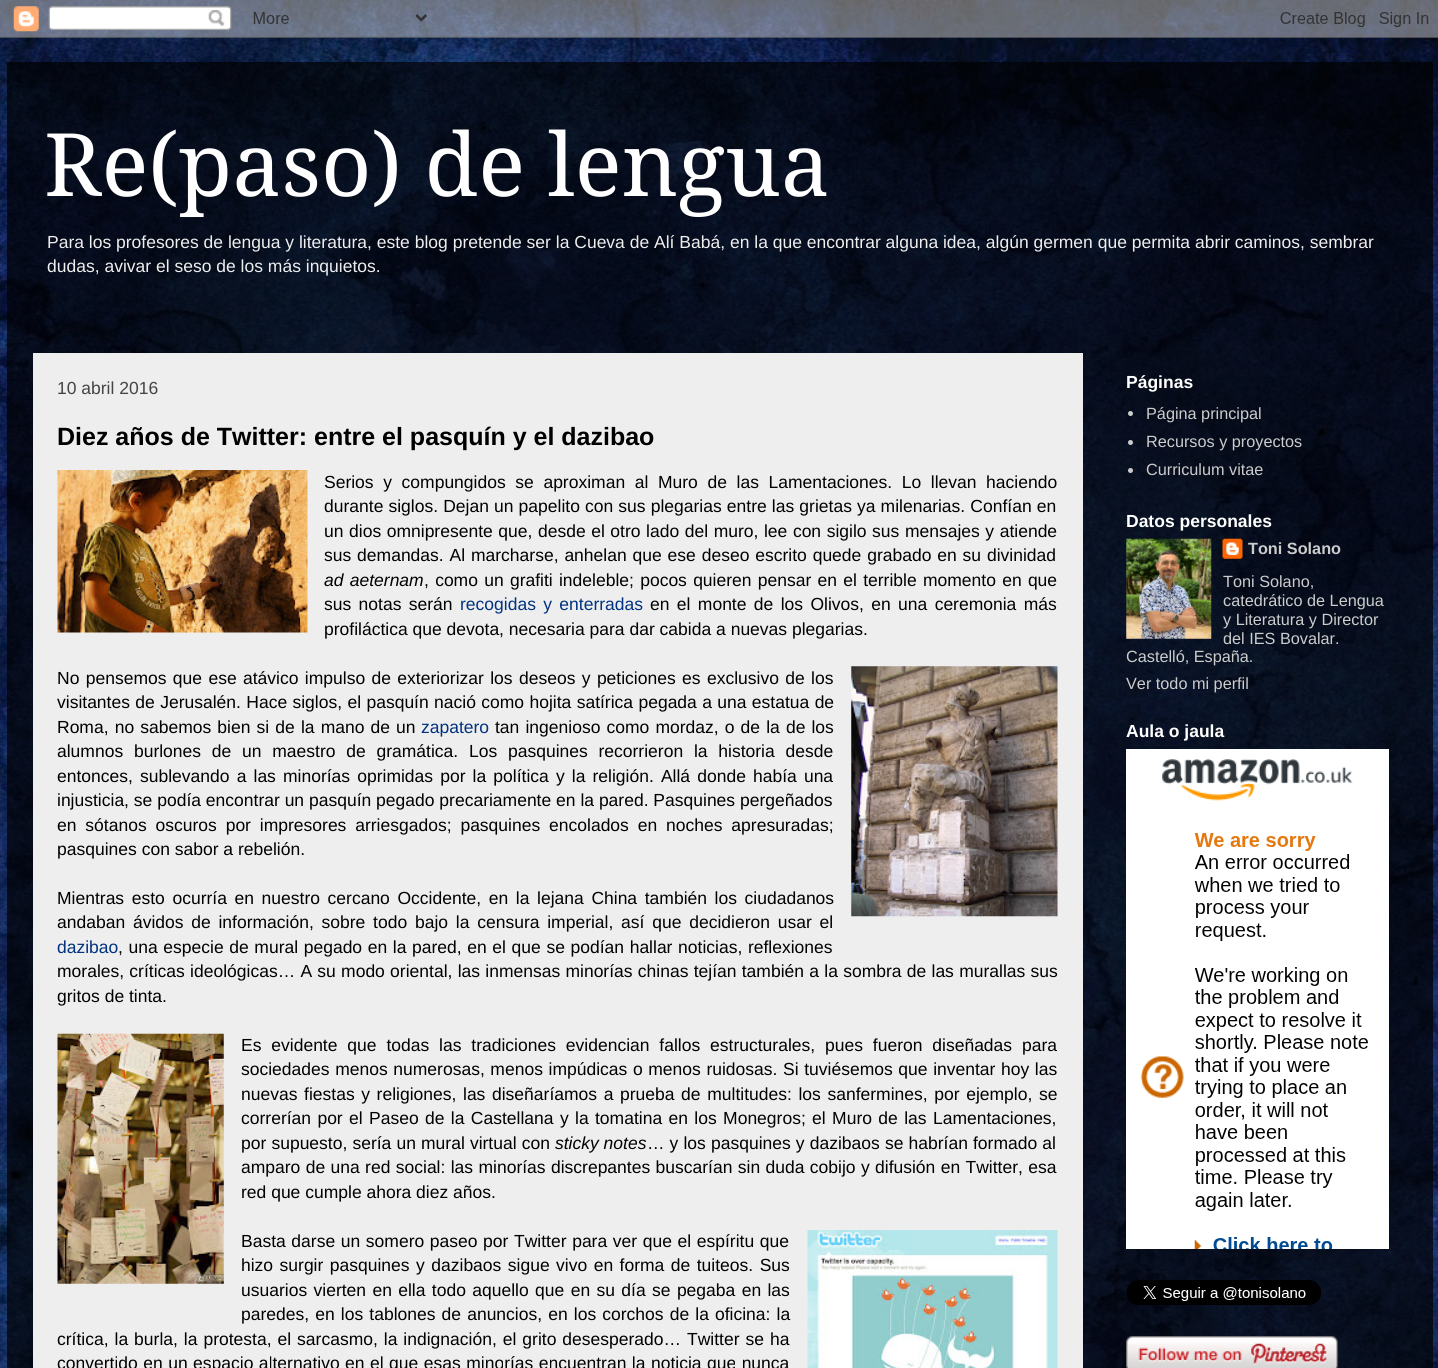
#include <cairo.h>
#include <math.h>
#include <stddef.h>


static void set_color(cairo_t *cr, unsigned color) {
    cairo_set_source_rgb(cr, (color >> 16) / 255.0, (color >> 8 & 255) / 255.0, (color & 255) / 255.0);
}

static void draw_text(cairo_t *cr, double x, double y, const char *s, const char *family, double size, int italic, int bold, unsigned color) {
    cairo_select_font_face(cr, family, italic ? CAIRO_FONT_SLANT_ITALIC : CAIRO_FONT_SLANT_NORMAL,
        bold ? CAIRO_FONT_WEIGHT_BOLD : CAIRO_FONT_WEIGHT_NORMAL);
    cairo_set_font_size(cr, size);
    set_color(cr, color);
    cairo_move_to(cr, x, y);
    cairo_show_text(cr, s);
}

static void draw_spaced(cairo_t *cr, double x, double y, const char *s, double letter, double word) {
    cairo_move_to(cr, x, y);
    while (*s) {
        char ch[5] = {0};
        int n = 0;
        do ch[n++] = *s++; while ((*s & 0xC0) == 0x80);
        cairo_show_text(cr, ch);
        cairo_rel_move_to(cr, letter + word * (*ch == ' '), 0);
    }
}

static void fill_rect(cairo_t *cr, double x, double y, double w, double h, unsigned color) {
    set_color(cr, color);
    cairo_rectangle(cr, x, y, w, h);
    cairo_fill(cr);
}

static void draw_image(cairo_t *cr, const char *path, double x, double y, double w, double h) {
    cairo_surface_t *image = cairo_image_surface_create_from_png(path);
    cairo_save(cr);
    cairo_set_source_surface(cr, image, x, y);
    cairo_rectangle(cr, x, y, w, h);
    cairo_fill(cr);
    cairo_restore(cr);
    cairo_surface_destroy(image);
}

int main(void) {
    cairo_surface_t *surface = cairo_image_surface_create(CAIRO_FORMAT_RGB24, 1438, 1368);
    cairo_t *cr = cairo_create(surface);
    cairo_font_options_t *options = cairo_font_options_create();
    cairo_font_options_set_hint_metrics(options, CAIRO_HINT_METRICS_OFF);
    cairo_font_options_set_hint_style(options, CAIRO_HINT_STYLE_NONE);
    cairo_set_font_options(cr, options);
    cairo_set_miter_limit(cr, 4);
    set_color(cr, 0xFFFFFF);
    cairo_paint(cr);
    draw_image(cr, "assets/img1.png", 0, 0, 1438, 1368);
    draw_image(cr, "assets/img2.png", 0, 0, 1438, 38);
    draw_text(cr, 44, 196, "Re(paso) de lengua", "Droid Serif", 87.5, 0, 0, 0xFFFFFF);
    draw_text(cr, 47, 248, "Para los profesores de lengua y literatura, este blog pretende ser la Cueva de Alí Babá, en la que encontrar alguna idea, algún germen que permita abrir caminos, sembrar", "Liberation Sans", 17.5, 0, 0, 0xEEEEEE);
    draw_text(cr, 47, 272, "dudas, avivar el seso de los más inquietos.", "Liberation Sans", 17.5, 0, 0, 0xEEEEEE);
    fill_rect(cr, 33, 353, 1050, 1015, 0xEEEEEE);
    draw_text(cr, 57, 394, "10 abril 2016", "Liberation Sans", 17.5, 0, 0, 0x444444);
    draw_text(cr, 57, 445, "Diez años de Twitter: entre el pasquín y el dazibao", "Liberation Sans", 25, 0, 1, 0x000000);
    draw_image(cr, "assets/img3.png", 57, 470, 251, 163);
    cairo_select_font_face(cr, "Liberation Sans", CAIRO_FONT_SLANT_NORMAL, CAIRO_FONT_WEIGHT_NORMAL);
    cairo_set_font_size(cr, 17.5);
    draw_spaced(cr, 324, 488, "Serios y compungidos se aproximan al Muro de las Lamentaciones. Lo llevan haciendo", 0, 4.75);
    draw_spaced(cr, 324, 512, "durante siglos. Dejan un papelito con sus plegarias entre las grietas ya milenarias. Confían en", 0, 0.25);
    draw_spaced(cr, 324, 537, "un dios omnipresente que, desde el otro lado del muro, lee con sigilo sus mensajes y atiende", 0, 0.7);
    draw_spaced(cr, 324, 561, "sus demandas. Al marcharse, anhelan que ese deseo escrito quede grabado en su divinidad", 0, 1);
    cairo_select_font_face(cr, "Liberation Sans", CAIRO_FONT_SLANT_ITALIC, CAIRO_FONT_WEIGHT_NORMAL);
    draw_spaced(cr, 324, 586, "ad aeternam", 0, 1.4);
    cairo_select_font_face(cr, "Liberation Sans", CAIRO_FONT_SLANT_NORMAL, CAIRO_FONT_WEIGHT_NORMAL);
    draw_spaced(cr, 424, 586, ", como un grafiti indeleble; pocos quieren pensar en el terrible momento en que", 0, 1.4);
    draw_spaced(cr, 324, 610, "sus notas serán", 0, 2.5);
    set_color(cr, 0x00327F);
    draw_spaced(cr, 460, 610, "recogidas y enterradas", 0, 2.5);
    set_color(cr, 0x000000);
    draw_spaced(cr, 650, 610, "en el monte de los Olivos, en una ceremonia más", 0, 2.5);
    draw_text(cr, 324, 635, "profiláctica que devota, necesaria para dar cabida a nuevas plegarias.", "Liberation Sans", 17.5, 0, 0, 0x000000);
    draw_spaced(cr, 57, 684, "No pensemos que ese atávico impulso de exteriorizar los deseos y peticiones es exclusivo de los", 0, 1.5);
    draw_image(cr, "assets/img4.png", 851, 666, 207, 251);
    draw_spaced(cr, 57, 708, "visitantes de Jerusalén. Hace siglos, el pasquín nació como hojita satírica pegada a una estatua de", 0, 0.5);
    draw_spaced(cr, 57, 733, "Roma, no sabemos bien si de la mano de un", 0, 1.25);
    draw_text(cr, 421, 733, "zapatero", "Liberation Sans", 17.5, 0, 0, 0x00327F);
    set_color(cr, 0x000000);
    draw_spaced(cr, 495, 733, "tan ingenioso como mordaz, o de la de los", 0, 1.25);
    draw_spaced(cr, 57, 757, "alumnos burlones de un maestro de gramática. Los pasquines recorrieron la historia desde", 0, 5.9);
    draw_spaced(cr, 57, 782, "entonces, sublevando a las minorías oprimidas por la política y la religión. Allá donde había una", 0, 2.25);
    draw_text(cr, 57, 806, "injusticia, se podía encontrar un pasquín pegado precariamente en la pared. Pasquines pergeñados", "Liberation Sans", 17.5, 0, 0, 0x000000);
    draw_spaced(cr, 57, 831, "en sótanos oscuros por impresores arriesgados; pasquines encolados en noches apresuradas;", 0, 4);
    draw_text(cr, 57, 855, "pasquines con sabor a rebelión.", "Liberation Sans", 17.5, 0, 0, 0x000000);
    draw_spaced(cr, 57, 904, "Mientras esto ocurría en nuestro cercano Occidente, en la lejana China también los ciudadanos", 0, 2.75);
    draw_spaced(cr, 57, 928, "andaban ávidos de información, sobre todo bajo la censura imperial, así que decidieron usar el", 0, 2.9);
    draw_text(cr, 57, 953, "dazibao", "Liberation Sans", 17.5, 0, 0, 0x00327F);
    set_color(cr, 0x000000);
    draw_spaced(cr, 118, 953, ", una especie de mural pegado en la pared, en el que se podían hallar noticias, reflexiones", 0, 0.75);
    draw_spaced(cr, 57, 977, "morales, críticas ideológicas… A su modo oriental, las inmensas minorías chinas tejían también a la sombra de las murallas sus", 0, 0.4);
    draw_text(cr, 57, 1002, "gritos de tinta.", "Liberation Sans", 17.5, 0, 0, 0x000000);
    draw_image(cr, "assets/img5.png", 57, 1033, 167, 251);
    draw_spaced(cr, 241, 1051, "Es evidente que todas las tradiciones evidencian fallos estructurales, pues fueron diseñadas para", 0, 5);
    draw_spaced(cr, 241, 1075, "sociedades menos numerosas, menos impúdicas o menos ruidosas. Si tuviésemos que inventar hoy las", 0, 0.75);
    draw_spaced(cr, 241, 1100, "nuevas fiestas y religiones, las diseñaríamos a prueba de multitudes: los sanfermines, por ejemplo, se", 0, 1.75);
    draw_spaced(cr, 241, 1124, "correrían por el Paseo de la Castellana y la tomatina en los Monegros; el Muro de las Lamentaciones,", 0, 1.5);
    draw_spaced(cr, 241, 1149, "por supuesto, sería un mural virtual con", 0, 0.25);
    draw_text(cr, 555, 1149, "sticky notes", "Liberation Sans", 17.5, 1, 0, 0x000000);
    cairo_select_font_face(cr, "Liberation Sans", CAIRO_FONT_SLANT_NORMAL, CAIRO_FONT_WEIGHT_NORMAL);
    draw_spaced(cr, 647, 1149, "… y los pasquines y dazibaos se habrían formado al", 0, 0.25);
    draw_spaced(cr, 241, 1173, "amparo de una red social: las minorías discrepantes buscarían sin duda cobijo y difusión en Twitter, esa", 0, 0.5);
    draw_text(cr, 241, 1198, "red que cumple ahora diez años.", "Liberation Sans", 17.5, 0, 0, 0x000000);
    draw_spaced(cr, 241, 1247, "Basta darse un somero paseo por Twitter para ver que el espíritu que", 0, 0.75);
    draw_image(cr, "assets/img6.png", 807, 1230, 251, 138);
    draw_spaced(cr, 241, 1271, "hizo surgir pasquines y dazibaos sigue vivo en forma de tuiteos. Sus", 0, 1.6);
    draw_spaced(cr, 241, 1296, "usuarios vierten en ella todo aquello que en su día se pegaba en las", 0, 1.5);
    draw_spaced(cr, 241, 1320, "paredes, en los tablones de anuncios, en los corchos de la oficina: la", 0, 1.25);
    draw_spaced(cr, 57, 1345, "crítica, la burla, la protesta, el sarcasmo, la indignación, el grito desesperado… Twitter se ha", 0, 1.1);
    draw_spaced(cr, 57, 1369, "convertido en un espacio alternativo en el que esas minorías encuentran la noticia que nunca", 0, 0.6);
    draw_text(cr, 1126, 388, "Páginas", "Liberation Sans", 17.5, 0, 1, 0xFFFFFF);
    set_color(cr, 0xCCCCCC);
    cairo_new_path(cr);
    cairo_arc(cr, 1130.5, 413.5, 2.5, 0, 2 * M_PI);
    cairo_fill(cr);
    draw_text(cr, 1146, 419, "Página principal", "Liberation Sans", 16.25, 0, 0, 0xCCCCCC);
    cairo_new_path(cr);
    cairo_arc(cr, 1130.5, 442.5, 2.5, 0, 2 * M_PI);
    cairo_fill(cr);
    draw_text(cr, 1146, 447, "Recursos y proyectos", "Liberation Sans", 16.25, 0, 0, 0xCCCCCC);
    cairo_new_path(cr);
    cairo_arc(cr, 1130.5, 470.5, 2.5, 0, 2 * M_PI);
    cairo_fill(cr);
    draw_text(cr, 1146, 475, "Curriculum vitae", "Liberation Sans", 16.25, 0, 0, 0xCCCCCC);
    draw_text(cr, 1126, 527, "Datos personales", "Liberation Sans", 17.5, 0, 1, 0xFFFFFF);
    draw_image(cr, "assets/img7.png", 1126, 538, 86, 101);
    draw_image(cr, "assets/img8.png", 1222, 538, 21, 21);
    draw_text(cr, 1248, 554, "Toni Solano", "Liberation Sans", 16.25, 0, 1, 0xCCCCCC);
    draw_text(cr, 1223, 587, "Toni Solano,", "Liberation Sans", 16.25, 0, 0, 0xCCCCCC);
    draw_text(cr, 1223, 606, "catedrático de Lengua", "Liberation Sans", 16.25, 0, 0, 0xCCCCCC);
    draw_text(cr, 1223, 625, "y Literatura y Director", "Liberation Sans", 16.25, 0, 0, 0xCCCCCC);
    draw_text(cr, 1223, 644, "del IES Bovalar.", "Liberation Sans", 16.25, 0, 0, 0xCCCCCC);
    draw_text(cr, 1126, 662, "Castelló, España.", "Liberation Sans", 16.25, 0, 0, 0xCCCCCC);
    draw_text(cr, 1126, 689, "Ver todo mi perfil", "Liberation Sans", 16.25, 0, 0, 0xCCCCCC);
    draw_text(cr, 1126, 737, "Aula o jaula", "Liberation Sans", 17.5, 0, 1, 0xFFFFFF);
    draw_image(cr, "assets/img9.png", 1126, 749, 263, 500);
    draw_image(cr, "assets/img10.png", 1126, 1280, 195, 25);
    draw_image(cr, "assets/img11.png", 1126, 1336, 212, 32);
    cairo_surface_write_to_png(surface, "output.png");
    cairo_font_options_destroy(options);
    cairo_destroy(cr);
    cairo_surface_destroy(surface);
    return 0;
}
